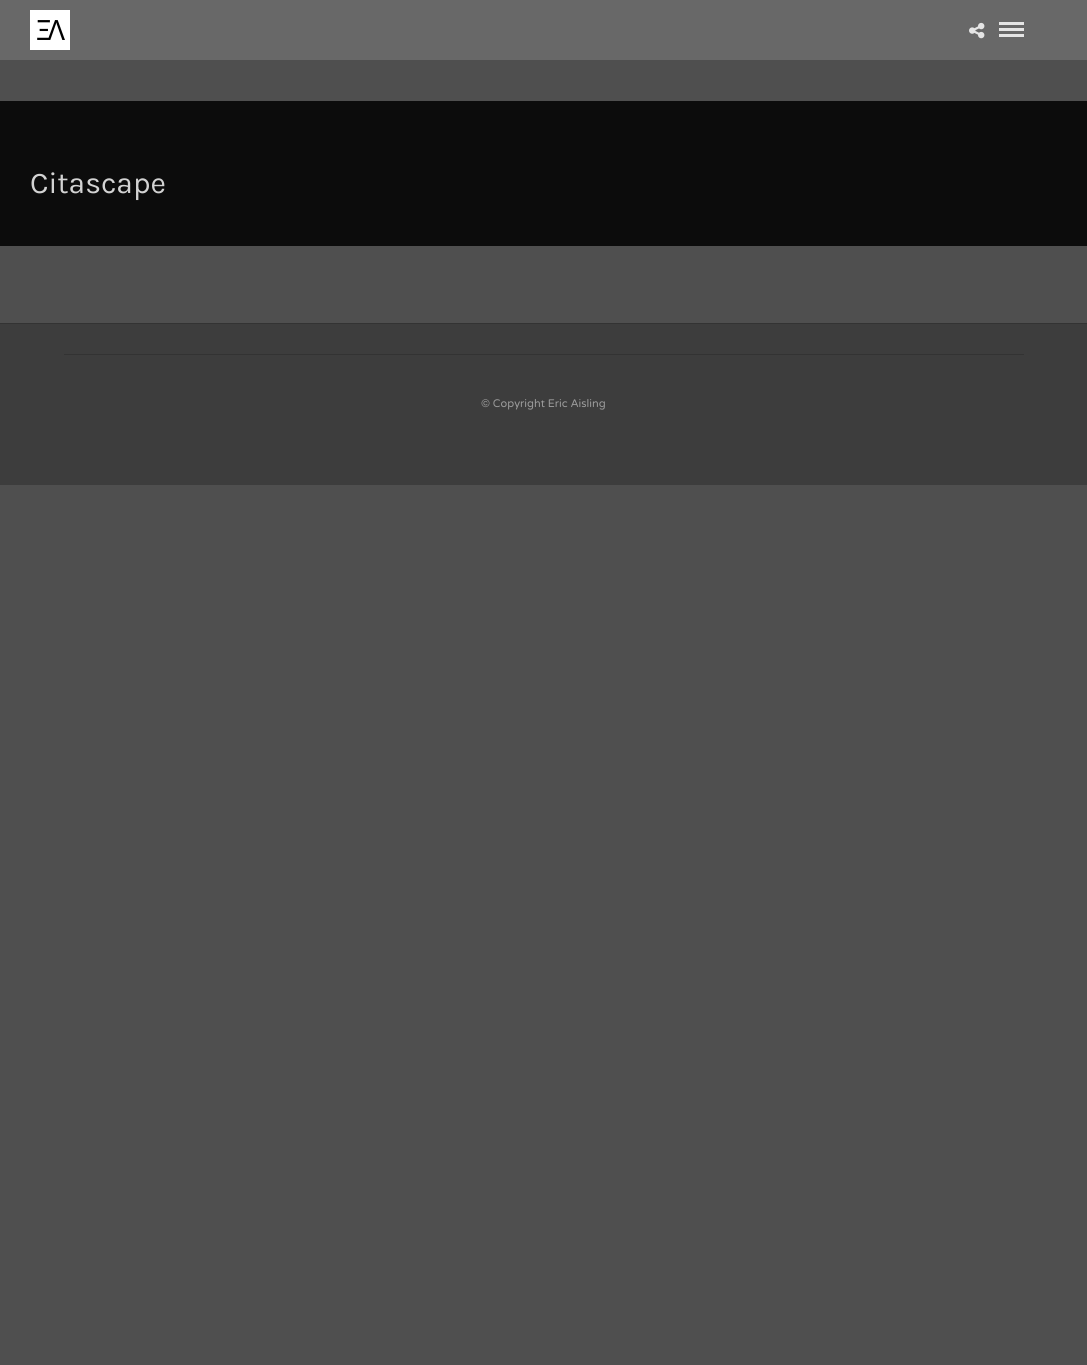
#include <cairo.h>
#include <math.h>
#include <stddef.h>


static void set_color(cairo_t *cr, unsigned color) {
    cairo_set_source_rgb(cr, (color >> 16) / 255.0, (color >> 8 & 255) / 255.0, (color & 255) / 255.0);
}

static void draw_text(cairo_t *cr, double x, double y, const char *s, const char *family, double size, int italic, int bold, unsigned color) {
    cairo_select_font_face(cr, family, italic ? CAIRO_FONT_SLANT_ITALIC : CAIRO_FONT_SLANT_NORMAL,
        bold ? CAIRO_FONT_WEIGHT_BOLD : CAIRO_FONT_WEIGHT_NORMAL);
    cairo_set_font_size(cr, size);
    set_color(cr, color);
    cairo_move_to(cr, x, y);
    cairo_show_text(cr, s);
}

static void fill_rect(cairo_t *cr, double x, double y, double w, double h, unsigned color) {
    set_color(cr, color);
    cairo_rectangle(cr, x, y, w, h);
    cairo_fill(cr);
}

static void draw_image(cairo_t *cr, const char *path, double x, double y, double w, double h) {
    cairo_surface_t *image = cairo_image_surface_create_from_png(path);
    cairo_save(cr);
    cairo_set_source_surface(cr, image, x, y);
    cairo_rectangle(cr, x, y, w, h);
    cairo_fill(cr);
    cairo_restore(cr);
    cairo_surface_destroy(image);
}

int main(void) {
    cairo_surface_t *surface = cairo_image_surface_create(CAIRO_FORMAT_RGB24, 1087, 1365);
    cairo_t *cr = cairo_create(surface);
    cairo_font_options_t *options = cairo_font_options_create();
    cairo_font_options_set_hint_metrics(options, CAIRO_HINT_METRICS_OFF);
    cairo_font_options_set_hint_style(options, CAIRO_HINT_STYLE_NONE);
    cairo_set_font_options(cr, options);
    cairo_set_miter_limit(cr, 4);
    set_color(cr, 0x4F4F4F);
    cairo_paint(cr);
    fill_rect(cr, 0, 0, 1087, 60, 0x686868);
    draw_image(cr, "assets/img1.png", 30, 10, 40, 40);
    draw_image(cr, "assets/img2.png", 969, 22, 16, 17);
    fill_rect(cr, 999, 22, 25, 3, 0xE5E5E5);
    fill_rect(cr, 999, 28, 25, 3, 0xE5E5E5);
    fill_rect(cr, 999, 34, 25, 3, 0xE5E5E5);
    fill_rect(cr, 0, 101, 1087, 145, 0x0C0C0C);
    draw_text(cr, 30, 193, "Citascape", "Karla", 30, 0, 0, 0xD3D3D3);
    fill_rect(cr, 0, 324, 1087, 161, 0x3D3D3D);
    fill_rect(cr, 0, 323, 1087, 1, 0x333333);
    fill_rect(cr, 64, 354, 960, 1, 0x333333);
    draw_text(cr, 481, 407, "© Copyright Eric Aisling", "Varela Round", 11, 0, 0, 0x9B9B9B);
    cairo_surface_write_to_png(surface, "output.png");
    cairo_font_options_destroy(options);
    cairo_destroy(cr);
    cairo_surface_destroy(surface);
    return 0;
}
